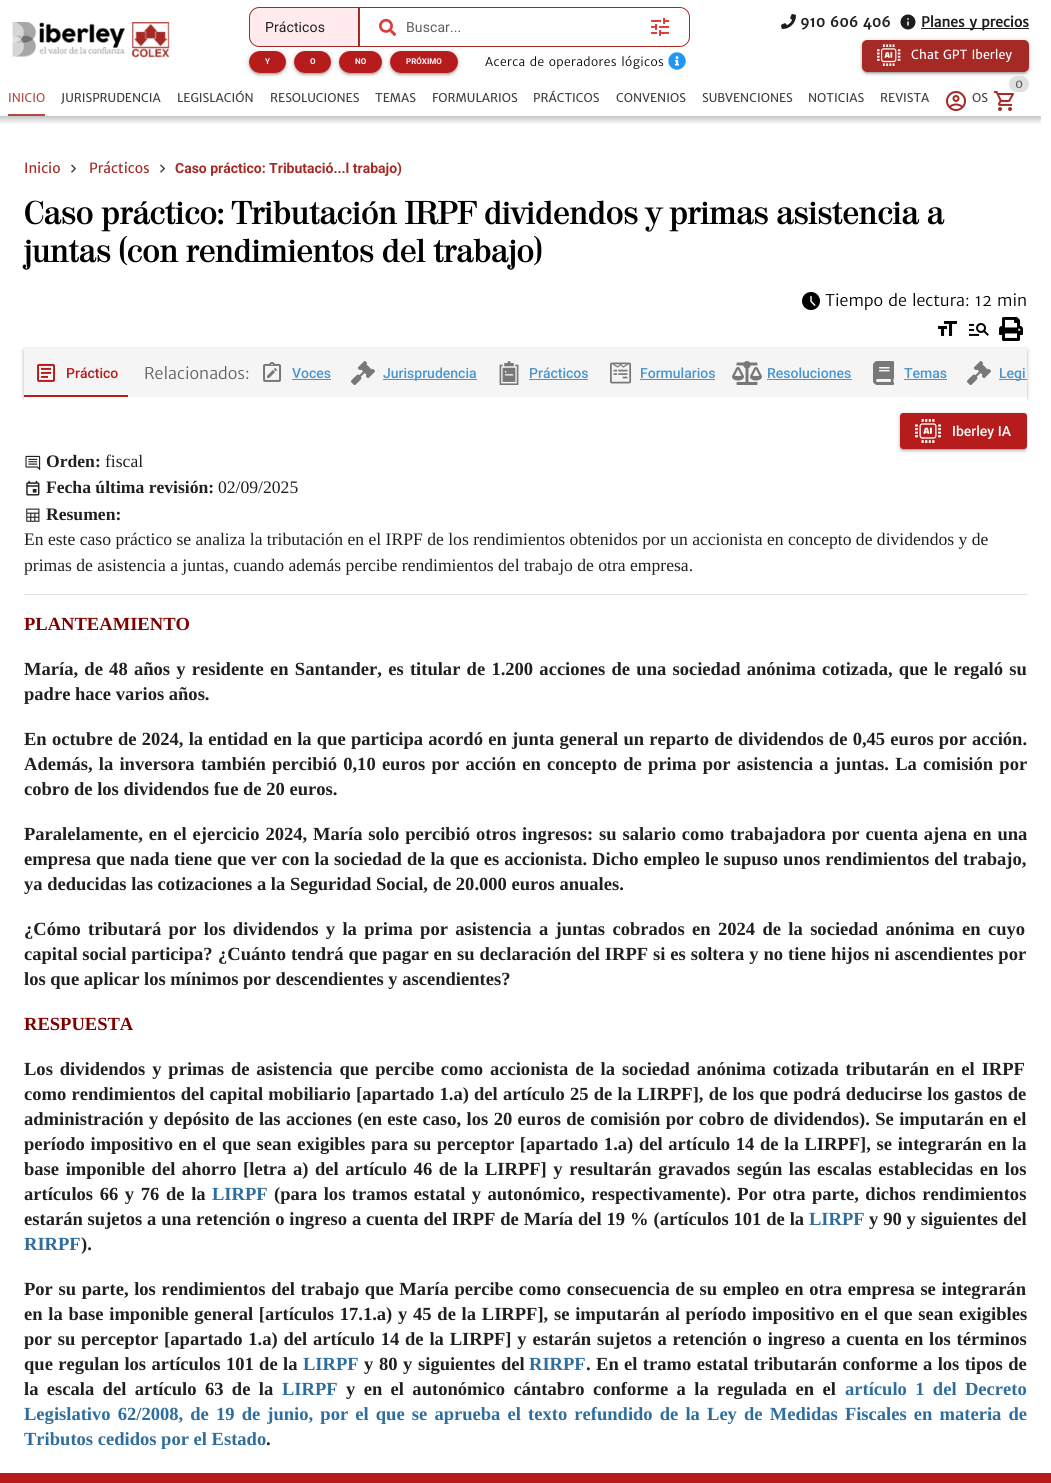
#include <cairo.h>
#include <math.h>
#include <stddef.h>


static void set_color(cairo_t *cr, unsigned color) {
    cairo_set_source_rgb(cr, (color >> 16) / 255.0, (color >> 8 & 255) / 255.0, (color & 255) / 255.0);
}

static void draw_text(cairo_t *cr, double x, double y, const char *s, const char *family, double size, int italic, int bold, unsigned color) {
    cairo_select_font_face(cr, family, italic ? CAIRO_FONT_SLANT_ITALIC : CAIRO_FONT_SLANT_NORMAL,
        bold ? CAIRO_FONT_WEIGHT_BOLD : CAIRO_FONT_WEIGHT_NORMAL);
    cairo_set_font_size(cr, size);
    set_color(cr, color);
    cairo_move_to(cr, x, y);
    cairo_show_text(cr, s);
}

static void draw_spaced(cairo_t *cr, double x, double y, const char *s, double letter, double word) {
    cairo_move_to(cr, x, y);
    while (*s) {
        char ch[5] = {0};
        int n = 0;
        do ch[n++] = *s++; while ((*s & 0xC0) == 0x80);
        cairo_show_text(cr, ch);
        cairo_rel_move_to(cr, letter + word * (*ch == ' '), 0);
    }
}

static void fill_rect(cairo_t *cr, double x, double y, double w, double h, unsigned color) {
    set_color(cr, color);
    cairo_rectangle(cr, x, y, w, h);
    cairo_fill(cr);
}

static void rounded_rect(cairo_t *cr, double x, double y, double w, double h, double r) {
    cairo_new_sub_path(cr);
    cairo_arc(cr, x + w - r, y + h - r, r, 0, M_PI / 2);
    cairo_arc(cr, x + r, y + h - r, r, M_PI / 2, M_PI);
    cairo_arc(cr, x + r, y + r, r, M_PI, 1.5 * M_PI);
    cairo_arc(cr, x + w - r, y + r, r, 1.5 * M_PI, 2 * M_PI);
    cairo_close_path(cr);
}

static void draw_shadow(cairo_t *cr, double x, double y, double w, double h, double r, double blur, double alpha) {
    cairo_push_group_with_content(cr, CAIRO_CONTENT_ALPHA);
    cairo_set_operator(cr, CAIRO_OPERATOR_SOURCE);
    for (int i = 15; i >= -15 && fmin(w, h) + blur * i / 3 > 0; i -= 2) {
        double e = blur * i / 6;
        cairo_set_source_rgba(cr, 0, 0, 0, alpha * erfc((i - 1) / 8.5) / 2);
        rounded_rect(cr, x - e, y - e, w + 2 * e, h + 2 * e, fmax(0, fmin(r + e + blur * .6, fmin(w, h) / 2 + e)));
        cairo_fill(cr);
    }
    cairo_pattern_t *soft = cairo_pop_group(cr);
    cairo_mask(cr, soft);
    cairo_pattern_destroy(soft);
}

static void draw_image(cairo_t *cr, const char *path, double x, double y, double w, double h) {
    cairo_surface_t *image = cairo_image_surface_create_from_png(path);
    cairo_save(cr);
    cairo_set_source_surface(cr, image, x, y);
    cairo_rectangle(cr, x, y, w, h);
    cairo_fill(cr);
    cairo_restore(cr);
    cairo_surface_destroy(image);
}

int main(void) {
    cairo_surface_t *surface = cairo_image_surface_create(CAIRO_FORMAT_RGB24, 1051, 1483);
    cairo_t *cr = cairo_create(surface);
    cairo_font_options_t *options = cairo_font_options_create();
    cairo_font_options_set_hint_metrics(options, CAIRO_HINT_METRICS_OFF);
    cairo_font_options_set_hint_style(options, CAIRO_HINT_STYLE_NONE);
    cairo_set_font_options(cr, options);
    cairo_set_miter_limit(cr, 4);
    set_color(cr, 0xFFFFFF);
    cairo_paint(cr);
    draw_image(cr, "assets/img1.png", 12, 22, 158, 36);
    set_color(cr, 0xFFEBEE);
    cairo_new_path(cr);
    cairo_move_to(cr, 259, 7.5);
    cairo_line_to(cr, 358.5, 7.5);
    cairo_line_to(cr, 358.5, 46.5);
    cairo_line_to(cr, 259, 46.5);
    cairo_curve_to(cr, 254, 46.5, 249.5, 42, 249.5, 37);
    cairo_line_to(cr, 249.5, 17);
    cairo_curve_to(cr, 249.5, 12, 254, 7.5, 259, 7.5);
    cairo_close_path(cr);
    cairo_fill_preserve(cr);
    set_color(cr, 0xA52925);
    cairo_set_line_width(cr, 1);
    cairo_stroke(cr);
    cairo_new_path(cr);
    cairo_move_to(cr, 359.5, 7.5);
    cairo_line_to(cr, 680, 7.5);
    cairo_curve_to(cr, 685, 7.5, 689.5, 12, 689.5, 17);
    cairo_line_to(cr, 689.5, 37);
    cairo_curve_to(cr, 689.5, 42, 685, 46.5, 680, 46.5);
    cairo_line_to(cr, 359.5, 46.5);
    cairo_close_path(cr);
    cairo_stroke(cr);
    draw_image(cr, "assets/img2.png", 379, 18, 18, 18);
    draw_image(cr, "assets/img3.png", 651, 17, 19, 19);
    set_color(cr, 0xB71C1C);
    rounded_rect(cr, 249, 51, 37, 22, 11);
    cairo_fill(cr);
    cairo_save(cr);
    cairo_set_fill_rule(cr, CAIRO_FILL_RULE_EVEN_ODD);
    cairo_new_path(cr);
    cairo_move_to(cr, 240, 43);
    cairo_line_to(cr, 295, 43);
    cairo_line_to(cr, 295, 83);
    cairo_line_to(cr, 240, 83);
    cairo_close_path(cr);
    cairo_move_to(cr, 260, 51);
    cairo_line_to(cr, 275, 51);
    cairo_curve_to(cr, 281, 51, 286, 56, 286, 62);
    cairo_curve_to(cr, 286, 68, 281, 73, 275, 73);
    cairo_line_to(cr, 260, 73);
    cairo_curve_to(cr, 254, 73, 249, 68, 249, 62);
    cairo_curve_to(cr, 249, 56, 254, 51, 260, 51);
    cairo_close_path(cr);
    cairo_clip(cr);
    set_color(cr, 0x000000);
    draw_shadow(cr, 249, 52, 37, 22, 11, 2.5, 0.2);
    cairo_restore(cr);
    rounded_rect(cr, 294, 51, 37, 22, 11);
    cairo_fill(cr);
    cairo_save(cr);
    cairo_set_fill_rule(cr, CAIRO_FILL_RULE_EVEN_ODD);
    cairo_new_path(cr);
    cairo_move_to(cr, 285, 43);
    cairo_line_to(cr, 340, 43);
    cairo_line_to(cr, 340, 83);
    cairo_line_to(cr, 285, 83);
    cairo_close_path(cr);
    cairo_move_to(cr, 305, 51);
    cairo_line_to(cr, 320, 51);
    cairo_curve_to(cr, 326, 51, 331, 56, 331, 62);
    cairo_curve_to(cr, 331, 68, 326, 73, 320, 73);
    cairo_line_to(cr, 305, 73);
    cairo_curve_to(cr, 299, 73, 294, 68, 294, 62);
    cairo_curve_to(cr, 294, 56, 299, 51, 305, 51);
    cairo_close_path(cr);
    cairo_clip(cr);
    set_color(cr, 0x000000);
    draw_shadow(cr, 294, 52, 37, 22, 11, 2.5, 0.2);
    cairo_restore(cr);
    rounded_rect(cr, 339, 51, 43, 22, 11);
    cairo_fill(cr);
    cairo_save(cr);
    cairo_set_fill_rule(cr, CAIRO_FILL_RULE_EVEN_ODD);
    cairo_new_path(cr);
    cairo_move_to(cr, 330, 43);
    cairo_line_to(cr, 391, 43);
    cairo_line_to(cr, 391, 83);
    cairo_line_to(cr, 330, 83);
    cairo_close_path(cr);
    cairo_move_to(cr, 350, 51);
    cairo_line_to(cr, 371, 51);
    cairo_curve_to(cr, 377, 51, 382, 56, 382, 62);
    cairo_curve_to(cr, 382, 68, 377, 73, 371, 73);
    cairo_line_to(cr, 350, 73);
    cairo_curve_to(cr, 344, 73, 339, 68, 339, 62);
    cairo_curve_to(cr, 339, 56, 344, 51, 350, 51);
    cairo_close_path(cr);
    cairo_clip(cr);
    set_color(cr, 0x000000);
    draw_shadow(cr, 339, 52, 43, 22, 11, 2.5, 0.2);
    cairo_restore(cr);
    rounded_rect(cr, 390, 51, 68, 22, 11);
    cairo_fill(cr);
    draw_image(cr, "assets/img4.png", 668, 52, 18, 18);
    draw_image(cr, "assets/img5.png", 781, 14, 15, 15);
    draw_image(cr, "assets/img6.png", 900, 14, 16, 16);
    fill_rect(cr, 921, 28, 108, 1, 0x1D1D1D);
    set_color(cr, 0xA52925);
    rounded_rect(cr, 862, 40, 167, 32, 5);
    cairo_fill(cr);
    cairo_save(cr);
    cairo_set_fill_rule(cr, CAIRO_FILL_RULE_EVEN_ODD);
    cairo_new_path(cr);
    cairo_move_to(cr, 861, 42);
    cairo_line_to(cr, 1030, 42);
    cairo_line_to(cr, 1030, 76);
    cairo_line_to(cr, 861, 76);
    cairo_close_path(cr);
    cairo_move_to(cr, 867, 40);
    cairo_line_to(cr, 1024, 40);
    cairo_curve_to(cr, 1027, 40, 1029, 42, 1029, 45);
    cairo_line_to(cr, 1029, 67);
    cairo_curve_to(cr, 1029, 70, 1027, 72, 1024, 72);
    cairo_line_to(cr, 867, 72);
    cairo_curve_to(cr, 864, 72, 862, 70, 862, 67);
    cairo_line_to(cr, 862, 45);
    cairo_curve_to(cr, 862, 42, 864, 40, 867, 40);
    cairo_close_path(cr);
    cairo_clip(cr);
    set_color(cr, 0x000000);
    draw_shadow(cr, 864, 45, 163, 28, 3, 0.5, 0.12);
    cairo_restore(cr);
    cairo_save(cr);
    cairo_set_fill_rule(cr, CAIRO_FILL_RULE_EVEN_ODD);
    cairo_new_path(cr);
    cairo_move_to(cr, 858, 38);
    cairo_line_to(cr, 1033, 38);
    cairo_line_to(cr, 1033, 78);
    cairo_line_to(cr, 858, 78);
    cairo_close_path(cr);
    cairo_move_to(cr, 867, 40);
    cairo_line_to(cr, 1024, 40);
    cairo_curve_to(cr, 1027, 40, 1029, 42, 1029, 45);
    cairo_line_to(cr, 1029, 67);
    cairo_curve_to(cr, 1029, 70, 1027, 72, 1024, 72);
    cairo_line_to(cr, 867, 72);
    cairo_curve_to(cr, 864, 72, 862, 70, 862, 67);
    cairo_line_to(cr, 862, 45);
    cairo_curve_to(cr, 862, 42, 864, 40, 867, 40);
    cairo_close_path(cr);
    cairo_clip(cr);
    set_color(cr, 0x000000);
    draw_shadow(cr, 862, 42, 167, 32, 5, 1, 0.14);
    cairo_restore(cr);
    cairo_save(cr);
    cairo_set_fill_rule(cr, CAIRO_FILL_RULE_EVEN_ODD);
    cairo_new_path(cr);
    cairo_move_to(cr, 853, 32);
    cairo_line_to(cr, 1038, 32);
    cairo_line_to(cr, 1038, 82);
    cairo_line_to(cr, 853, 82);
    cairo_close_path(cr);
    cairo_move_to(cr, 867, 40);
    cairo_line_to(cr, 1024, 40);
    cairo_curve_to(cr, 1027, 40, 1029, 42, 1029, 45);
    cairo_line_to(cr, 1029, 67);
    cairo_curve_to(cr, 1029, 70, 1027, 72, 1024, 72);
    cairo_line_to(cr, 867, 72);
    cairo_curve_to(cr, 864, 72, 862, 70, 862, 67);
    cairo_line_to(cr, 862, 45);
    cairo_curve_to(cr, 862, 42, 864, 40, 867, 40);
    cairo_close_path(cr);
    cairo_clip(cr);
    set_color(cr, 0x000000);
    draw_shadow(cr, 862, 41, 167, 32, 5, 2.5, 0.2);
    cairo_restore(cr);
    draw_image(cr, "assets/img7.png", 877, 44, 24, 22);
    draw_image(cr, "assets/img8.png", 994, 91, 20, 20);
    set_color(cr, 0xE0E0E0);
    rounded_rect(cr, 1009, 76, 20, 16, 8);
    cairo_fill(cr);
    draw_image(cr, "assets/img9.png", 946, 91, 20, 20);
    fill_rect(cr, 8, 114, 37, 2, 0xB34946);
    cairo_save(cr);
    cairo_rectangle(cr, 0, 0, 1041, 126);
    cairo_clip(cr);
    cairo_rectangle(cr, 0, 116, 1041, 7);
    cairo_clip(cr);
    set_color(cr, 0x000000);
    draw_shadow(cr, 0, 0, 1041, 116, 0, 5, 0.24);
    cairo_restore(cr);
    cairo_save(cr);
    cairo_rectangle(cr, 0, 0, 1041, 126);
    cairo_clip(cr);
    cairo_rectangle(cr, 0, 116, 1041, 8);
    cairo_clip(cr);
    set_color(cr, 0x000000);
    draw_shadow(cr, -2, -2, 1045, 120, 0, 5, 0.2);
    cairo_restore(cr);
    cairo_select_font_face(cr, "Roboto", CAIRO_FONT_SLANT_NORMAL, CAIRO_FONT_WEIGHT_NORMAL);
    cairo_set_font_size(cr, 14);
    set_color(cr, 0x202020);
    draw_spaced(cr, 265, 32, "Prácticos", 0.1, 0);
    set_color(cr, 0x616161);
    draw_spaced(cr, 406, 32, "Buscar...", 0.1, 0);
    cairo_save(cr);
    cairo_set_fill_rule(cr, CAIRO_FILL_RULE_EVEN_ODD);
    cairo_new_path(cr);
    cairo_move_to(cr, 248, 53);
    cairo_line_to(cr, 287, 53);
    cairo_line_to(cr, 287, 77);
    cairo_line_to(cr, 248, 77);
    cairo_close_path(cr);
    cairo_move_to(cr, 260, 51);
    cairo_line_to(cr, 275, 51);
    cairo_curve_to(cr, 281, 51, 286, 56, 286, 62);
    cairo_curve_to(cr, 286, 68, 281, 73, 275, 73);
    cairo_line_to(cr, 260, 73);
    cairo_curve_to(cr, 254, 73, 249, 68, 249, 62);
    cairo_curve_to(cr, 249, 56, 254, 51, 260, 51);
    cairo_close_path(cr);
    cairo_clip(cr);
    set_color(cr, 0x000000);
    draw_shadow(cr, 251, 56, 33, 18, 9, 0.5, 0.12);
    cairo_restore(cr);
    cairo_save(cr);
    cairo_set_fill_rule(cr, CAIRO_FILL_RULE_EVEN_ODD);
    cairo_new_path(cr);
    cairo_move_to(cr, 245, 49);
    cairo_line_to(cr, 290, 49);
    cairo_line_to(cr, 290, 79);
    cairo_line_to(cr, 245, 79);
    cairo_close_path(cr);
    cairo_move_to(cr, 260, 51);
    cairo_line_to(cr, 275, 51);
    cairo_curve_to(cr, 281, 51, 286, 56, 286, 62);
    cairo_curve_to(cr, 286, 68, 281, 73, 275, 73);
    cairo_line_to(cr, 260, 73);
    cairo_curve_to(cr, 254, 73, 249, 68, 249, 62);
    cairo_curve_to(cr, 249, 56, 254, 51, 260, 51);
    cairo_close_path(cr);
    cairo_clip(cr);
    set_color(cr, 0x000000);
    draw_shadow(cr, 249, 53, 37, 22, 11, 1, 0.14);
    cairo_restore(cr);
    draw_text(cr, 265, 64, "Y", "Roboto", 8, 0, 1, 0xFFFFFF);
    cairo_save(cr);
    cairo_set_fill_rule(cr, CAIRO_FILL_RULE_EVEN_ODD);
    cairo_new_path(cr);
    cairo_move_to(cr, 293, 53);
    cairo_line_to(cr, 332, 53);
    cairo_line_to(cr, 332, 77);
    cairo_line_to(cr, 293, 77);
    cairo_close_path(cr);
    cairo_move_to(cr, 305, 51);
    cairo_line_to(cr, 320, 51);
    cairo_curve_to(cr, 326, 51, 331, 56, 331, 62);
    cairo_curve_to(cr, 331, 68, 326, 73, 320, 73);
    cairo_line_to(cr, 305, 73);
    cairo_curve_to(cr, 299, 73, 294, 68, 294, 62);
    cairo_curve_to(cr, 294, 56, 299, 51, 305, 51);
    cairo_close_path(cr);
    cairo_clip(cr);
    set_color(cr, 0x000000);
    draw_shadow(cr, 296, 56, 33, 18, 9, 0.5, 0.12);
    cairo_restore(cr);
    cairo_save(cr);
    cairo_set_fill_rule(cr, CAIRO_FILL_RULE_EVEN_ODD);
    cairo_new_path(cr);
    cairo_move_to(cr, 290, 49);
    cairo_line_to(cr, 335, 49);
    cairo_line_to(cr, 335, 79);
    cairo_line_to(cr, 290, 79);
    cairo_close_path(cr);
    cairo_move_to(cr, 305, 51);
    cairo_line_to(cr, 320, 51);
    cairo_curve_to(cr, 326, 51, 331, 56, 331, 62);
    cairo_curve_to(cr, 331, 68, 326, 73, 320, 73);
    cairo_line_to(cr, 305, 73);
    cairo_curve_to(cr, 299, 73, 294, 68, 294, 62);
    cairo_curve_to(cr, 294, 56, 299, 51, 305, 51);
    cairo_close_path(cr);
    cairo_clip(cr);
    set_color(cr, 0x000000);
    draw_shadow(cr, 294, 53, 37, 22, 11, 1, 0.14);
    cairo_restore(cr);
    draw_text(cr, 310, 64, "O", "Roboto", 8, 0, 1, 0xFFFFFF);
    cairo_save(cr);
    cairo_set_fill_rule(cr, CAIRO_FILL_RULE_EVEN_ODD);
    cairo_new_path(cr);
    cairo_move_to(cr, 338, 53);
    cairo_line_to(cr, 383, 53);
    cairo_line_to(cr, 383, 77);
    cairo_line_to(cr, 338, 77);
    cairo_close_path(cr);
    cairo_move_to(cr, 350, 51);
    cairo_line_to(cr, 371, 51);
    cairo_curve_to(cr, 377, 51, 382, 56, 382, 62);
    cairo_curve_to(cr, 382, 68, 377, 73, 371, 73);
    cairo_line_to(cr, 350, 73);
    cairo_curve_to(cr, 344, 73, 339, 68, 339, 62);
    cairo_curve_to(cr, 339, 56, 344, 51, 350, 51);
    cairo_close_path(cr);
    cairo_clip(cr);
    set_color(cr, 0x000000);
    draw_shadow(cr, 341, 56, 39, 18, 9, 0.5, 0.12);
    cairo_restore(cr);
    cairo_save(cr);
    cairo_set_fill_rule(cr, CAIRO_FILL_RULE_EVEN_ODD);
    cairo_new_path(cr);
    cairo_move_to(cr, 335, 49);
    cairo_line_to(cr, 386, 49);
    cairo_line_to(cr, 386, 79);
    cairo_line_to(cr, 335, 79);
    cairo_close_path(cr);
    cairo_move_to(cr, 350, 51);
    cairo_line_to(cr, 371, 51);
    cairo_curve_to(cr, 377, 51, 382, 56, 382, 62);
    cairo_curve_to(cr, 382, 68, 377, 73, 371, 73);
    cairo_line_to(cr, 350, 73);
    cairo_curve_to(cr, 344, 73, 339, 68, 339, 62);
    cairo_curve_to(cr, 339, 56, 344, 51, 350, 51);
    cairo_close_path(cr);
    cairo_clip(cr);
    set_color(cr, 0x000000);
    draw_shadow(cr, 339, 53, 43, 22, 11, 1, 0.14);
    cairo_restore(cr);
    draw_text(cr, 355, 64, "NO", "Roboto", 8, 0, 1, 0xFFFFFF);
    cairo_save(cr);
    cairo_set_fill_rule(cr, CAIRO_FILL_RULE_EVEN_ODD);
    cairo_new_path(cr);
    cairo_move_to(cr, 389, 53);
    cairo_line_to(cr, 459, 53);
    cairo_line_to(cr, 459, 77);
    cairo_line_to(cr, 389, 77);
    cairo_close_path(cr);
    cairo_move_to(cr, 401, 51);
    cairo_line_to(cr, 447, 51);
    cairo_curve_to(cr, 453, 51, 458, 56, 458, 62);
    cairo_curve_to(cr, 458, 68, 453, 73, 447, 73);
    cairo_line_to(cr, 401, 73);
    cairo_curve_to(cr, 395, 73, 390, 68, 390, 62);
    cairo_curve_to(cr, 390, 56, 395, 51, 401, 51);
    cairo_close_path(cr);
    cairo_clip(cr);
    set_color(cr, 0x000000);
    draw_shadow(cr, 392, 56, 64, 18, 9, 0.5, 0.12);
    cairo_restore(cr);
    cairo_save(cr);
    cairo_set_fill_rule(cr, CAIRO_FILL_RULE_EVEN_ODD);
    cairo_new_path(cr);
    cairo_move_to(cr, 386, 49);
    cairo_line_to(cr, 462, 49);
    cairo_line_to(cr, 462, 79);
    cairo_line_to(cr, 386, 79);
    cairo_close_path(cr);
    cairo_move_to(cr, 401, 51);
    cairo_line_to(cr, 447, 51);
    cairo_curve_to(cr, 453, 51, 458, 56, 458, 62);
    cairo_curve_to(cr, 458, 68, 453, 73, 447, 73);
    cairo_line_to(cr, 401, 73);
    cairo_curve_to(cr, 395, 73, 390, 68, 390, 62);
    cairo_curve_to(cr, 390, 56, 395, 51, 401, 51);
    cairo_close_path(cr);
    cairo_clip(cr);
    set_color(cr, 0x000000);
    draw_shadow(cr, 390, 53, 68, 22, 11, 1, 0.14);
    cairo_restore(cr);
    cairo_save(cr);
    cairo_set_fill_rule(cr, CAIRO_FILL_RULE_EVEN_ODD);
    cairo_new_path(cr);
    cairo_move_to(cr, 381, 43);
    cairo_line_to(cr, 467, 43);
    cairo_line_to(cr, 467, 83);
    cairo_line_to(cr, 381, 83);
    cairo_close_path(cr);
    cairo_move_to(cr, 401, 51);
    cairo_line_to(cr, 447, 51);
    cairo_curve_to(cr, 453, 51, 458, 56, 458, 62);
    cairo_curve_to(cr, 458, 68, 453, 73, 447, 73);
    cairo_line_to(cr, 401, 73);
    cairo_curve_to(cr, 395, 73, 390, 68, 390, 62);
    cairo_curve_to(cr, 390, 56, 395, 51, 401, 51);
    cairo_close_path(cr);
    cairo_clip(cr);
    set_color(cr, 0x000000);
    draw_shadow(cr, 390, 52, 68, 22, 11, 2.5, 0.2);
    cairo_restore(cr);
    draw_text(cr, 406, 64, "PRÓXIMO", "Roboto", 8, 0, 1, 0xFFFFFF);
    cairo_select_font_face(cr, "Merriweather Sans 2", CAIRO_FONT_SLANT_NORMAL, CAIRO_FONT_WEIGHT_NORMAL);
    cairo_set_font_size(cr, 12);
    set_color(cr, 0x000000);
    draw_spaced(cr, 485, 66, "Acerca de operadores lógicos", 0.4, 0);
    draw_text(cr, 800, 27, "910 606 406", "Merriweather Sans", 14, 0, 1, 0x202020);
    draw_text(cr, 921, 27, "Planes y precios", "Merriweather Sans", 14, 0, 1, 0x202020);
    draw_text(cr, 911, 59, "Chat GPT Iberley", "Merriweather Sans", 12.5, 0, 0, 0xFFFFFF);
    draw_text(cr, 1015, 88, "0", "Merriweather Sans", 12, 0, 0, 0x616161);
    draw_text(cr, 8, 102, "INICIO", "Merriweather Sans", 12, 0, 0, 0xB34946);
    draw_text(cr, 61, 102, "JURISPRUDENCIA", "Merriweather Sans", 12, 0, 0, 0x3F3F3F);
    draw_text(cr, 177, 102, "LEGISLACIÓN", "Merriweather Sans", 12, 0, 0, 0x3F3F3F);
    draw_text(cr, 270, 102, "RESOLUCIONES", "Merriweather Sans", 12, 0, 0, 0x3F3F3F);
    draw_text(cr, 375, 102, "TEMAS", "Merriweather Sans", 12, 0, 0, 0x3F3F3F);
    draw_text(cr, 432, 102, "FORMULARIOS", "Merriweather Sans", 12, 0, 0, 0x3F3F3F);
    draw_text(cr, 533, 102, "PRÁCTICOS", "Merriweather Sans", 12, 0, 0, 0x3F3F3F);
    draw_text(cr, 616, 102, "CONVENIOS", "Merriweather Sans", 12, 0, 0, 0x3F3F3F);
    draw_text(cr, 702, 102, "SUBVENCIONES", "Merriweather Sans", 12, 0, 0, 0x3F3F3F);
    draw_text(cr, 808, 102, "NOTICIAS", "Merriweather Sans", 12, 0, 0, 0x3F3F3F);
    draw_text(cr, 880, 102, "REVISTA", "Merriweather Sans", 12, 0, 0, 0x3F3F3F);
    draw_text(cr, 972, 102, "OS", "Merriweather Sans", 12, 0, 0, 0x3F3F3F);
    draw_text(cr, 24, 173, "Inicio", "Merriweather Sans", 14, 0, 0, 0xA52925);
    draw_image(cr, "assets/img10.png", 71, 164, 6, 9);
    draw_text(cr, 89, 173, "Prácticos", "Merriweather Sans", 14, 0, 0, 0xA52925);
    draw_image(cr, "assets/img10.png", 160, 164, 6, 9);
    draw_text(cr, 175, 173, "Caso práctico: Tributació...l trabajo)", "Roboto", 14, 0, 1, 0xA52925);
    draw_text(cr, 24, 224, "Caso práctico: Tributación IRPF dividendos y primas asistencia a", "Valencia", 32, 0, 1, 0x000000);
    draw_text(cr, 24, 262, "juntas (con rendimientos del trabajo)", "Valencia", 32, 0, 1, 0x000000);
    draw_image(cr, "assets/img11.png", 802, 292, 18, 18);
    draw_text(cr, 825, 306, "Tiempo de lectura: 12 min", "Merriweather Sans 2", 16, 0, 0, 0x000000);
    draw_image(cr, "assets/img12.png", 938, 321, 19, 15);
    draw_image(cr, "assets/img13.png", 969, 323, 20, 13);
    draw_image(cr, "assets/img14.png", 999, 317, 24, 24);
    set_color(cr, 0x000000);
    draw_shadow(cr, 24, 351, 1003, 48, 0, 1, 0.14);
    draw_shadow(cr, 24, 350, 1003, 48, 0, 2.5, 0.2);
    fill_rect(cr, 24, 349, 1003, 48, 0xF5F5F5);
    draw_image(cr, "assets/img15.png", 37, 363, 19, 19);
    draw_text(cr, 66, 378, "Práctico", "Roboto Medium", 14, 0, 0, 0xB71C1C);
    fill_rect(cr, 24, 395, 104, 2, 0xB71C1C);
    draw_text(cr, 144, 379, "Relacionados:", "Merriweather Sans 2", 16, 0, 0, 0x616161);
    draw_image(cr, "assets/img16.png", 263, 362, 19, 20);
    draw_text(cr, 292, 378, "Voces", "Roboto Medium", 14, 0, 0, 0x4B95CF);
    fill_rect(cr, 292, 379, 39, 1, 0x4B95CF);
    draw_image(cr, "assets/img17.png", 351, 361, 24, 24);
    fill_rect(cr, 383, 379, 94, 1, 0x4B95CF);
    draw_text(cr, 383, 378, "Jurisprudencia", "Roboto Medium", 14, 0, 0, 0x4B95CF);
    draw_image(cr, "assets/img18.png", 499, 361, 20, 24);
    draw_text(cr, 529, 378, "Prácticos", "Roboto Medium", 14, 0, 0, 0x4B95CF);
    fill_rect(cr, 529, 379, 59, 1, 0x4B95CF);
    draw_image(cr, "assets/img19.png", 610, 362, 22, 22);
    draw_text(cr, 640, 378, "Formularios", "Roboto Medium", 14, 0, 0, 0x4B95CF);
    fill_rect(cr, 640, 379, 75, 1, 0x4B95CF);
    draw_image(cr, "assets/img20.png", 732, 361, 30, 24);
    draw_text(cr, 767, 378, "Resoluciones", "Roboto Medium", 14, 0, 0, 0x4B95CF);
    fill_rect(cr, 767, 379, 85, 1, 0x4B95CF);
    draw_image(cr, "assets/img21.png", 873, 361, 22, 24);
    draw_text(cr, 904, 378, "Temas", "Roboto Medium", 14, 0, 0, 0x4B95CF);
    fill_rect(cr, 904, 379, 43, 1, 0x4B95CF);
    draw_image(cr, "assets/img17.png", 967, 361, 24, 24);
    fill_rect(cr, 999, 379, 28, 1, 0x4B95CF);
    draw_text(cr, 999, 378, "Legi", "Roboto Medium", 14, 0, 0, 0x4B95CF);
    fill_rect(cr, 24, 397, 1003, 5, 0xFFFFFF);
    set_color(cr, 0xB71C1C);
    rounded_rect(cr, 900, 413, 127, 36, 3);
    cairo_fill(cr);
    cairo_save(cr);
    cairo_rectangle(cr, 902, 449, 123, 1);
    cairo_clip(cr);
    set_color(cr, 0x000000);
    draw_shadow(cr, 902, 418, 123, 32, 1, 0.5, 0.12);
    cairo_restore(cr);
    cairo_save(cr);
    cairo_set_fill_rule(cr, CAIRO_FILL_RULE_EVEN_ODD);
    cairo_new_path(cr);
    cairo_move_to(cr, 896, 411);
    cairo_line_to(cr, 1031, 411);
    cairo_line_to(cr, 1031, 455);
    cairo_line_to(cr, 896, 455);
    cairo_close_path(cr);
    cairo_move_to(cr, 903, 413);
    cairo_line_to(cr, 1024, 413);
    cairo_curve_to(cr, 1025.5, 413, 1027, 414.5, 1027, 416);
    cairo_line_to(cr, 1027, 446);
    cairo_curve_to(cr, 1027, 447.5, 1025.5, 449, 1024, 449);
    cairo_line_to(cr, 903, 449);
    cairo_curve_to(cr, 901.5, 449, 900, 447.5, 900, 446);
    cairo_line_to(cr, 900, 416);
    cairo_curve_to(cr, 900, 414.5, 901.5, 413, 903, 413);
    cairo_close_path(cr);
    cairo_clip(cr);
    set_color(cr, 0x000000);
    draw_shadow(cr, 900, 415, 127, 36, 3, 1, 0.14);
    cairo_restore(cr);
    cairo_save(cr);
    cairo_rectangle(cr, 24, 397, 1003, 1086);
    cairo_clip(cr);
    cairo_set_fill_rule(cr, CAIRO_FILL_RULE_EVEN_ODD);
    cairo_new_path(cr);
    cairo_move_to(cr, 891, 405);
    cairo_line_to(cr, 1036, 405);
    cairo_line_to(cr, 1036, 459);
    cairo_line_to(cr, 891, 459);
    cairo_close_path(cr);
    cairo_move_to(cr, 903, 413);
    cairo_line_to(cr, 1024, 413);
    cairo_curve_to(cr, 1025.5, 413, 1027, 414.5, 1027, 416);
    cairo_line_to(cr, 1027, 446);
    cairo_curve_to(cr, 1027, 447.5, 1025.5, 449, 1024, 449);
    cairo_line_to(cr, 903, 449);
    cairo_curve_to(cr, 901.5, 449, 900, 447.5, 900, 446);
    cairo_line_to(cr, 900, 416);
    cairo_curve_to(cr, 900, 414.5, 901.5, 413, 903, 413);
    cairo_close_path(cr);
    cairo_clip(cr);
    set_color(cr, 0x000000);
    draw_shadow(cr, 900, 414, 127, 36, 3, 2.5, 0.2);
    cairo_restore(cr);
    draw_image(cr, "assets/img22.png", 915, 419, 26, 24);
    draw_text(cr, 952, 436, "Iberley IA", "Roboto Medium", 14, 0, 0, 0xFFFFFF);
    draw_image(cr, "assets/img23.png", 25, 455, 16, 16);
    draw_text(cr, 46, 467, "Orden:", "Liberation Serif", 17.6, 0, 1, 0x202020);
    draw_text(cr, 105, 467, "fiscal", "Liberation Serif", 17.6, 0, 0, 0x202020);
    draw_image(cr, "assets/img24.png", 26, 480, 14, 16);
    draw_text(cr, 46, 493, "Fecha última revisión:", "Liberation Serif", 17.6, 0, 1, 0x202020);
    draw_text(cr, 218, 493, "02/09/2025", "Liberation Serif", 17.6, 0, 0, 0x202020);
    draw_image(cr, "assets/img25.png", 26, 508, 14, 14);
    draw_text(cr, 46, 520, "Resumen:", "Liberation Serif", 17.6, 0, 1, 0x202020);
    draw_text(cr, 24, 545, "En este caso práctico se analiza la tributación en el IRPF de los rendimientos obtenidos por un accionista en concepto de dividendos y de", "Liberation Serif", 17.6, 0, 0, 0x202020);
    draw_text(cr, 24, 571, "primas de asistencia a juntas, cuando además percibe rendimientos del trabajo de otra empresa.", "Liberation Serif", 17.6, 0, 0, 0x202020);
    fill_rect(cr, 24, 594, 1003, 1, 0xE0E0E0);
    draw_text(cr, 24, 630, "PLANTEAMIENTO", "Liberation Serif", 18.55, 0, 1, 0x800000);
    set_color(cr, 0x202020);
    draw_spaced(cr, 24, 675, "María, de 48 años y residente en Santander, es titular de 1.200 acciones de una sociedad anónima cotizada, que le regaló su", 0, 1.6);
    draw_text(cr, 24, 700, "padre hace varios años.", "Liberation Serif", 18.55, 0, 1, 0x202020);
    draw_spaced(cr, 24, 745, "En octubre de 2024, la entidad en la que participa acordó en junta general un reparto de dividendos de 0,45 euros por acción.", 0, 0.6);
    draw_spaced(cr, 24, 770, "Además, la inversora también percibió 0,10 euros por acción en concepto de prima por asistencia a juntas. La comisión por", 0, 1.6);
    draw_text(cr, 24, 795, "cobro de los dividendos fue de 20 euros.", "Liberation Serif", 18.55, 0, 1, 0x202020);
    draw_spaced(cr, 24, 840, "Paralelamente, en el ejercicio 2024, María solo percibió otros ingresos: su salario como trabajadora por cuenta ajena en una", 0, 1.25);
    draw_spaced(cr, 24, 865, "empresa que nada tiene que ver con la sociedad de la que es accionista. Dicho empleo le supuso unos rendimientos del trabajo,", 0, 0.35);
    draw_text(cr, 24, 890, "ya deducidas las cotizaciones a la Seguridad Social, de 20.000 euros anuales.", "Liberation Serif", 18.55, 0, 1, 0x202020);
    draw_spaced(cr, 24, 935, "¿Cómo tributará por los dividendos y la prima por asistencia a juntas cobrados en 2024 de la sociedad anónima en cuyo", 0, 2.75);
    draw_text(cr, 24, 960, "capital social participa?", "Liberation Serif", 18.55, 0, 1, 0x202020);
    draw_spaced(cr, 218, 960, "¿Cuánto tendrá que pagar en su declaración del IRPF si es soltera y no tiene hijos ni ascendientes por", 0, 0.3);
    draw_text(cr, 24, 985, "los que aplicar los mínimos por descendientes y ascendientes?", "Liberation Serif", 18.55, 0, 1, 0x202020);
    draw_text(cr, 24, 1030, "RESPUESTA", "Liberation Serif", 18.55, 0, 1, 0x800000);
    set_color(cr, 0x202020);
    draw_spaced(cr, 24, 1075, "Los dividendos y primas de asistencia que percibe como accionista de la sociedad anónima cotizada tributarán en el IRPF", 0, 2.25);
    draw_spaced(cr, 24, 1100, "como rendimientos del capital mobiliario [apartado 1.a) del artículo 25 de la LIRPF], de los que podrá deducirse los gastos de", 0, 0.55);
    draw_spaced(cr, 24, 1125, "administración y depósito de las acciones (en este caso, los 20 euros de comisión por cobro de dividendos). Se imputarán en el", 0, 0.75);
    draw_spaced(cr, 24, 1150, "período impositivo en el que sean exigibles para su perceptor [apartado 1.a) del artículo 14 de la LIRPF], se integrarán en la", 0, 1.05);
    draw_spaced(cr, 24, 1175, "base imponible del ahorro [letra a) del artículo 46 de la LIRPF] y resultarán gravados según las escalas establecidas en los", 0, 1.95);
    draw_spaced(cr, 24, 1200, "artículos 66 y 76 de la", 0, 2);
    draw_text(cr, 212, 1200, "LIRPF", "Liberation Serif", 18.55, 0, 1, 0x2E6D9D);
    set_color(cr, 0x202020);
    draw_spaced(cr, 274, 1200, "(para los tramos estatal y autonómico, respectivamente). Por otra parte, dichos rendimientos", 0, 1.8);
    draw_spaced(cr, 24, 1225, "estarán sujetos a una retención o ingreso a cuenta del IRPF de María del 19 % (artículos 101 de la", 0, 0.25);
    draw_text(cr, 809, 1225, "LIRPF", "Liberation Serif", 18.55, 0, 1, 0x2E6D9D);
    set_color(cr, 0x202020);
    draw_spaced(cr, 869, 1225, "y 90 y siguientes del", 0, 0.25);
    draw_text(cr, 24, 1250, "RIRPF", "Liberation Serif", 18.55, 0, 1, 0x2E6D9D);
    draw_text(cr, 81, 1250, ").", "Liberation Serif", 18.55, 0, 1, 0x202020);
    draw_spaced(cr, 24, 1295, "Por su parte, los rendimientos del trabajo que María percibe como consecuencia de su empleo en otra empresa se integrarán", 0, 1);
    draw_spaced(cr, 24, 1320, "en la base imponible general [artículos 17.1.a) y 45 de la LIRPF], se imputarán al período impositivo en el que sean exigibles", 0, 1.1);
    draw_spaced(cr, 24, 1345, "por su perceptor [apartado 1.a) del artículo 14 de la LIRPF] y estarán sujetos a retención o ingreso a cuenta en los términos", 0, 1.2);
    draw_spaced(cr, 24, 1370, "que regulan los artículos 101 de la", 0, 0.75);
    draw_text(cr, 303, 1370, "LIRPF", "Liberation Serif", 18.55, 0, 1, 0x2E6D9D);
    set_color(cr, 0x202020);
    draw_spaced(cr, 364, 1370, "y 80 y siguientes del", 0, 1);
    draw_text(cr, 529, 1370, "RIRPF", "Liberation Serif", 18.55, 0, 1, 0x2E6D9D);
    set_color(cr, 0x202020);
    draw_spaced(cr, 586, 1370, ". En el tramo estatal tributarán conforme a los tipos de", 0, 0.75);
    draw_spaced(cr, 24, 1395, "la escala del artículo 63 de la", 0, 3.75);
    draw_text(cr, 282, 1395, "LIRPF", "Liberation Serif", 18.55, 0, 1, 0x2E6D9D);
    set_color(cr, 0x202020);
    draw_spaced(cr, 346, 1395, "y en el autonómico cántabro conforme a la regulada en el", 0, 3.75);
    set_color(cr, 0x2E6D9D);
    draw_spaced(cr, 845, 1395, "artículo 1 del Decreto", 0, 3.75);
    draw_spaced(cr, 24, 1420, "Legislativo 62/2008, de 19 de junio, por el que se aprueba el texto refundido de la Ley de Medidas Fiscales en materia de", 0, 2.5);
    draw_text(cr, 24, 1445, "Tributos cedidos por el Estado", "Liberation Serif", 18.55, 0, 1, 0x2E6D9D);
    draw_text(cr, 266, 1445, ".", "Liberation Serif", 18.55, 0, 1, 0x202020);
    fill_rect(cr, 0, 1473, 1051, 10, 0xB71C1C);
    cairo_surface_write_to_png(surface, "output.png");
    cairo_font_options_destroy(options);
    cairo_destroy(cr);
    cairo_surface_destroy(surface);
    return 0;
}
